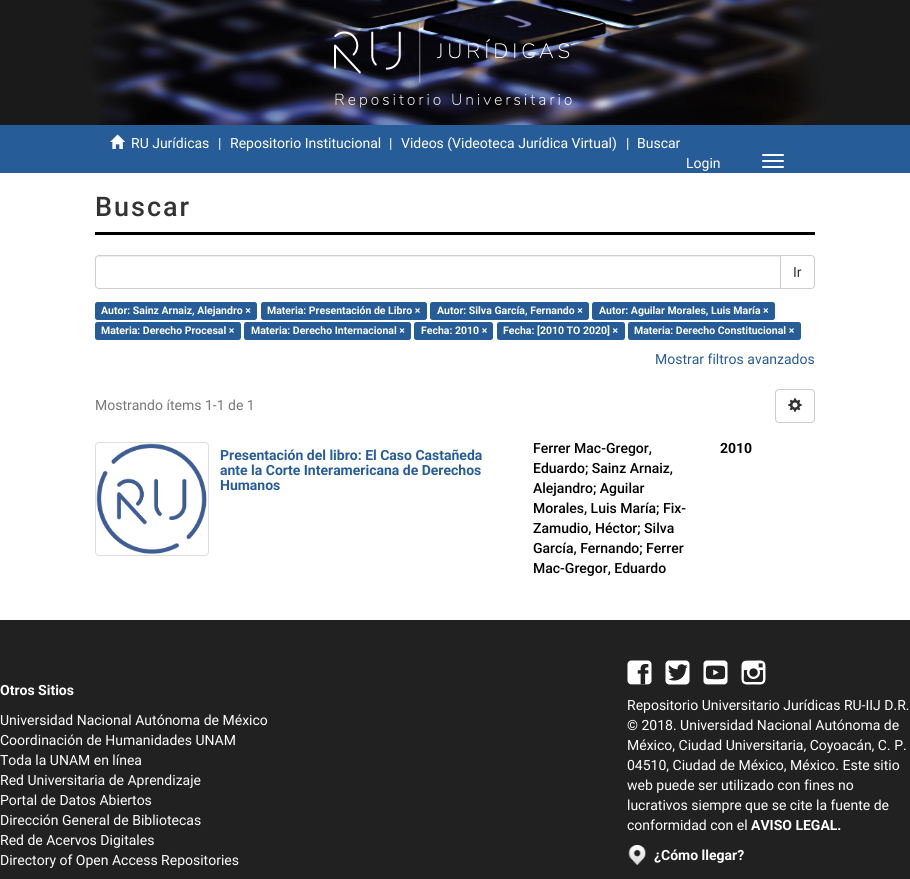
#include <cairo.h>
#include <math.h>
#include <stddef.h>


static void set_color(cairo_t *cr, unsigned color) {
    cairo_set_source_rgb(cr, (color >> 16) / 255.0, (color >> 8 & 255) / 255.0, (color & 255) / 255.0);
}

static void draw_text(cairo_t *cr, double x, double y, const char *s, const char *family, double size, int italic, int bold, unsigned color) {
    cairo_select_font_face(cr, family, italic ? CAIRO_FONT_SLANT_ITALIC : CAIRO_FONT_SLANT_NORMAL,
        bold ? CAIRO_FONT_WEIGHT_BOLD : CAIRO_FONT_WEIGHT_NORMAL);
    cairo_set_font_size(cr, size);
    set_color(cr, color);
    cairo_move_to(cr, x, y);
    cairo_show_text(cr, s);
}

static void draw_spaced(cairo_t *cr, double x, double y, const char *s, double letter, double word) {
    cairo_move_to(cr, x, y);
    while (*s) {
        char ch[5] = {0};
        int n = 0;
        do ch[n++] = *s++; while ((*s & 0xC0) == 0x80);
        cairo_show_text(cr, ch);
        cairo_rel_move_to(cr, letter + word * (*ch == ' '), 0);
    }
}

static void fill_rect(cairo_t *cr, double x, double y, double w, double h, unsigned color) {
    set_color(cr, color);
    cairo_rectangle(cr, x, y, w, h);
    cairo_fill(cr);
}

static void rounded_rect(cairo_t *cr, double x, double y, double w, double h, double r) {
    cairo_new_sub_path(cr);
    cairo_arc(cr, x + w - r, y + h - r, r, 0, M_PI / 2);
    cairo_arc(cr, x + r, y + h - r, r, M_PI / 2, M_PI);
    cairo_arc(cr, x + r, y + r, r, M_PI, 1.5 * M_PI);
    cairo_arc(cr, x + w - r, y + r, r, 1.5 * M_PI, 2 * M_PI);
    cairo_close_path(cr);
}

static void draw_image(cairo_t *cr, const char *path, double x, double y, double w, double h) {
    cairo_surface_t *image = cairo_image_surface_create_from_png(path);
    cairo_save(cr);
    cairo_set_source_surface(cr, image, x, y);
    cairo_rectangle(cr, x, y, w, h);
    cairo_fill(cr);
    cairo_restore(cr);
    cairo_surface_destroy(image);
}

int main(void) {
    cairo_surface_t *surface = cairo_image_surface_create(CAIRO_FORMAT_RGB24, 910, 879);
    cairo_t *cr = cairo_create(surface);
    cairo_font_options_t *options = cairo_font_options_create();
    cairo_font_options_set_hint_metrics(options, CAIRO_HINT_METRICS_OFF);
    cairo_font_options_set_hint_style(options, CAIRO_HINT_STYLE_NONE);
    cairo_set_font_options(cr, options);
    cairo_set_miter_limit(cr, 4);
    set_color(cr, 0xFFFFFF);
    cairo_paint(cr);
    draw_image(cr, "assets/img1.png", 0, 0, 910, 125);
    draw_image(cr, "assets/img2.png", 334, 23, 238, 85);
    fill_rect(cr, 0, 125, 910, 48, 0x265D99);
    draw_image(cr, "assets/img3.png", 110, 134, 15, 15);
    draw_text(cr, 131, 148, "RU Jurídicas", "Roboto", 14, 0, 0, 0xFFFFFF);
    draw_text(cr, 218, 148, "|", "Roboto", 14, 0, 0, 0xFFFFFF);
    draw_text(cr, 230, 148, "Repositorio Institucional", "Roboto", 14, 0, 0, 0xFFFFFF);
    draw_text(cr, 389, 148, "|", "Roboto", 14, 0, 0, 0xFFFFFF);
    draw_text(cr, 401, 148, "Videos (Videoteca Jurídica Virtual)", "Roboto", 14, 0, 0, 0xFFFFFF);
    draw_text(cr, 626, 148, "|", "Roboto", 14, 0, 0, 0xFFFFFF);
    draw_text(cr, 637, 148, "Buscar", "Roboto", 14, 0, 0, 0xFFFFFF);
    draw_text(cr, 686, 168, "Login", "Roboto", 14, 0, 0, 0xFFFFFF);
    rounded_rect(cr, 762, 154, 22, 2, 1);
    cairo_fill(cr);
    rounded_rect(cr, 762, 160, 22, 2, 1);
    cairo_fill(cr);
    rounded_rect(cr, 762, 166, 22, 2, 1);
    cairo_fill(cr);
    fill_rect(cr, 95, 232, 720, 3, 0x000000);
    cairo_select_font_face(cr, "Roboto Medium", CAIRO_FONT_SLANT_NORMAL, CAIRO_FONT_WEIGHT_NORMAL);
    cairo_set_font_size(cr, 27);
    set_color(cr, 0x333333);
    draw_spaced(cr, 95, 216, "Buscar", 2, 0);
    cairo_new_path(cr);
    cairo_move_to(cr, 780.5, 255.5);
    cairo_line_to(cr, 811, 255.5);
    cairo_curve_to(cr, 813, 255.5, 814.5, 257, 814.5, 259);
    cairo_line_to(cr, 814.5, 285);
    cairo_curve_to(cr, 814.5, 287, 813, 288.5, 811, 288.5);
    cairo_line_to(cr, 780.5, 288.5);
    cairo_close_path(cr);
    set_color(cr, 0xCCCCCC);
    cairo_set_line_width(cr, 1);
    cairo_stroke(cr);
    set_color(cr, 0xFFFFFF);
    cairo_new_path(cr);
    cairo_move_to(cr, 99, 255);
    cairo_line_to(cr, 781, 255);
    cairo_line_to(cr, 781, 289);
    cairo_line_to(cr, 99, 289);
    cairo_curve_to(cr, 97, 289, 95, 287, 95, 285);
    cairo_line_to(cr, 95, 259);
    cairo_curve_to(cr, 95, 257, 97, 255, 99, 255);
    cairo_close_path(cr);
    cairo_fill(cr);
    set_color(cr, 0xECECEC);
    cairo_new_path(cr);
    cairo_move_to(cr, 99, 257);
    cairo_line_to(cr, 780, 257);
    cairo_line_to(cr, 780, 256);
    cairo_line_to(cr, 99, 256);
    cairo_curve_to(cr, 97, 256, 96, 257, 96, 259);
    cairo_line_to(cr, 96, 260);
    cairo_curve_to(cr, 96, 258, 97, 257, 99, 257);
    cairo_close_path(cr);
    cairo_fill(cr);
    cairo_new_path(cr);
    cairo_move_to(cr, 99, 255.5);
    cairo_line_to(cr, 780.5, 255.5);
    cairo_line_to(cr, 780.5, 288.5);
    cairo_line_to(cr, 99, 288.5);
    cairo_curve_to(cr, 97, 288.5, 95.5, 287, 95.5, 285);
    cairo_line_to(cr, 95.5, 259);
    cairo_curve_to(cr, 95.5, 257, 97, 255.5, 99, 255.5);
    cairo_close_path(cr);
    set_color(cr, 0xCCCCCC);
    cairo_stroke(cr);
    draw_text(cr, 793, 277, "Ir", "Roboto", 14, 0, 0, 0x333333);
    set_color(cr, 0x265D99);
    rounded_rect(cr, 95, 302, 162, 18, 2.5);
    cairo_fill(cr);
    draw_text(cr, 101, 314, "Autor: Sainz Arnaiz, Alejandro ×", "Roboto", 10.5, 0, 1, 0xFFFFFF);
    set_color(cr, 0x265D99);
    rounded_rect(cr, 261, 302, 166, 18, 2.5);
    cairo_fill(cr);
    draw_text(cr, 267, 314, "Materia: Presentación de Libro ×", "Roboto", 10.5, 0, 1, 0xFFFFFF);
    set_color(cr, 0x265D99);
    rounded_rect(cr, 430, 302, 159, 18, 2.5);
    cairo_fill(cr);
    draw_text(cr, 437, 314, "Autor: Silva García, Fernando ×", "Roboto", 10.5, 0, 1, 0xFFFFFF);
    set_color(cr, 0x265D99);
    rounded_rect(cr, 592, 302, 183, 18, 2.5);
    cairo_fill(cr);
    draw_text(cr, 599, 314, "Autor: Aguilar Morales, Luis María ×", "Roboto", 10.5, 0, 1, 0xFFFFFF);
    set_color(cr, 0x265D99);
    rounded_rect(cr, 95, 322, 146, 18, 2.5);
    cairo_fill(cr);
    draw_text(cr, 101, 334, "Materia: Derecho Procesal ×", "Roboto", 10.5, 0, 1, 0xFFFFFF);
    set_color(cr, 0x265D99);
    rounded_rect(cr, 244, 322, 167, 18, 2.5);
    cairo_fill(cr);
    draw_text(cr, 251, 334, "Materia: Derecho Internacional ×", "Roboto", 10.5, 0, 1, 0xFFFFFF);
    set_color(cr, 0x265D99);
    rounded_rect(cr, 414, 322, 79, 18, 2.5);
    cairo_fill(cr);
    draw_text(cr, 421, 334, "Fecha: 2010 ×", "Roboto", 10.5, 0, 1, 0xFFFFFF);
    set_color(cr, 0x265D99);
    rounded_rect(cr, 497, 322, 128, 18, 2.5);
    cairo_fill(cr);
    draw_text(cr, 503, 334, "Fecha: [2010 TO 2020] ×", "Roboto", 10.5, 0, 1, 0xFFFFFF);
    set_color(cr, 0x265D99);
    rounded_rect(cr, 628, 322, 173, 18, 2.5);
    cairo_fill(cr);
    draw_text(cr, 634, 334, "Materia: Derecho Constitucional ×", "Roboto", 10.5, 0, 1, 0xFFFFFF);
    draw_text(cr, 655, 364, "Mostrar filtros avanzados", "Roboto", 14, 0, 0, 0x265D99);
    draw_text(cr, 95, 410, "Mostrando ítems 1-1 de 1", "Roboto", 14, 0, 0, 0x777777);
    rounded_rect(cr, 775.5, 389.5, 39, 33, 3.5);
    set_color(cr, 0xCCCCCC);
    cairo_stroke(cr);
    draw_image(cr, "assets/img4.png", 788, 398, 14, 14);
    draw_image(cr, "assets/img5.png", 96, 443, 111, 111);
    rounded_rect(cr, 95.5, 442.5, 113, 113, 3.5);
    set_color(cr, 0xDDDDDD);
    cairo_stroke(cr);
    draw_text(cr, 220, 460, "Presentación del libro: El Caso Castañeda", "Roboto", 14, 0, 1, 0x265D99);
    draw_text(cr, 220, 475, "ante la Corte Interamericana de Derechos", "Roboto", 14, 0, 1, 0x265D99);
    draw_text(cr, 220, 490, "Humanos", "Roboto", 14, 0, 1, 0x265D99);
    draw_text(cr, 533, 453, "Ferrer Mac-Gregor,", "Roboto Medium", 14, 0, 0, 0x000000);
    draw_text(cr, 533, 473, "Eduardo; Sainz Arnaiz,", "Roboto Medium", 14, 0, 0, 0x000000);
    draw_text(cr, 533, 493, "Alejandro; Aguilar", "Roboto Medium", 14, 0, 0, 0x000000);
    draw_text(cr, 533, 513, "Morales, Luis María; Fix-", "Roboto Medium", 14, 0, 0, 0x000000);
    draw_text(cr, 533, 533, "Zamudio, Héctor; Silva", "Roboto Medium", 14, 0, 0, 0x000000);
    draw_text(cr, 533, 553, "García, Fernando; Ferrer", "Roboto Medium", 14, 0, 0, 0x000000);
    draw_text(cr, 533, 573, "Mac-Gregor, Eduardo", "Roboto Medium", 14, 0, 0, 0x000000);
    draw_text(cr, 720, 453, "2010", "Roboto", 14, 0, 1, 0x000000);
    fill_rect(cr, 0, 620, 910, 259, 0x212121);
    draw_text(cr, 0, 695, "Otros Sitios", "Roboto", 14, 0, 1, 0xFFFFFF);
    draw_text(cr, 0, 725, "Universidad Nacional Autónoma de México", "Roboto", 14, 0, 0, 0xFFFFFF);
    draw_text(cr, 0, 745, "Coordinación de Humanidades UNAM", "Roboto", 14, 0, 0, 0xFFFFFF);
    draw_text(cr, 0, 765, "Toda la UNAM en línea", "Roboto", 14, 0, 0, 0xFFFFFF);
    draw_text(cr, 0, 785, "Red Universitaria de Aprendizaje", "Roboto", 14, 0, 0, 0xFFFFFF);
    draw_text(cr, 0, 805, "Portal de Datos Abiertos", "Roboto", 14, 0, 0, 0xFFFFFF);
    draw_text(cr, 0, 825, "Dirección General de Bibliotecas", "Roboto", 14, 0, 0, 0xFFFFFF);
    draw_text(cr, 0, 845, "Red de Acervos Digitales", "Roboto", 14, 0, 0, 0xFFFFFF);
    draw_text(cr, 0, 865, "Directory of Open Access Repositories", "Roboto", 14, 0, 0, 0xFFFFFF);
    draw_image(cr, "assets/img6.png", 627, 660, 25, 25);
    draw_image(cr, "assets/img7.png", 665, 660, 25, 25);
    draw_image(cr, "assets/img8.png", 703, 660, 25, 25);
    draw_image(cr, "assets/img9.png", 741, 660, 25, 25);
    draw_text(cr, 627, 710, "Repositorio Universitario Jurídicas RU-IIJ D.R.", "Roboto", 14, 0, 0, 0xFFFFFF);
    draw_text(cr, 627, 730, "© 2018. Universidad Nacional Autónoma de", "Roboto", 14, 0, 0, 0xFFFFFF);
    draw_text(cr, 627, 750, "México, Ciudad Universitaria, Coyoacán, C. P.", "Roboto", 14, 0, 0, 0xFFFFFF);
    draw_text(cr, 627, 770, "04510, Ciudad de México, México. Este sitio", "Roboto", 14, 0, 0, 0xFFFFFF);
    draw_text(cr, 627, 790, "web puede ser utilizado con fines no", "Roboto", 14, 0, 0, 0xFFFFFF);
    draw_text(cr, 627, 810, "lucrativos siempre que se cite la fuente de", "Roboto", 14, 0, 0, 0xFFFFFF);
    draw_text(cr, 627, 830, "conformidad con el", "Roboto", 14, 0, 0, 0xFFFFFF);
    draw_text(cr, 751, 830, "AVISO LEGAL.", "Roboto", 14, 0, 1, 0xFFFFFF);
    draw_image(cr, "assets/img10.png", 628, 845, 18, 20);
    draw_text(cr, 654, 860, "¿Cómo llegar?", "Roboto", 14, 0, 1, 0xFFFFFF);
    cairo_surface_write_to_png(surface, "output.png");
    cairo_font_options_destroy(options);
    cairo_destroy(cr);
    cairo_surface_destroy(surface);
    return 0;
}
